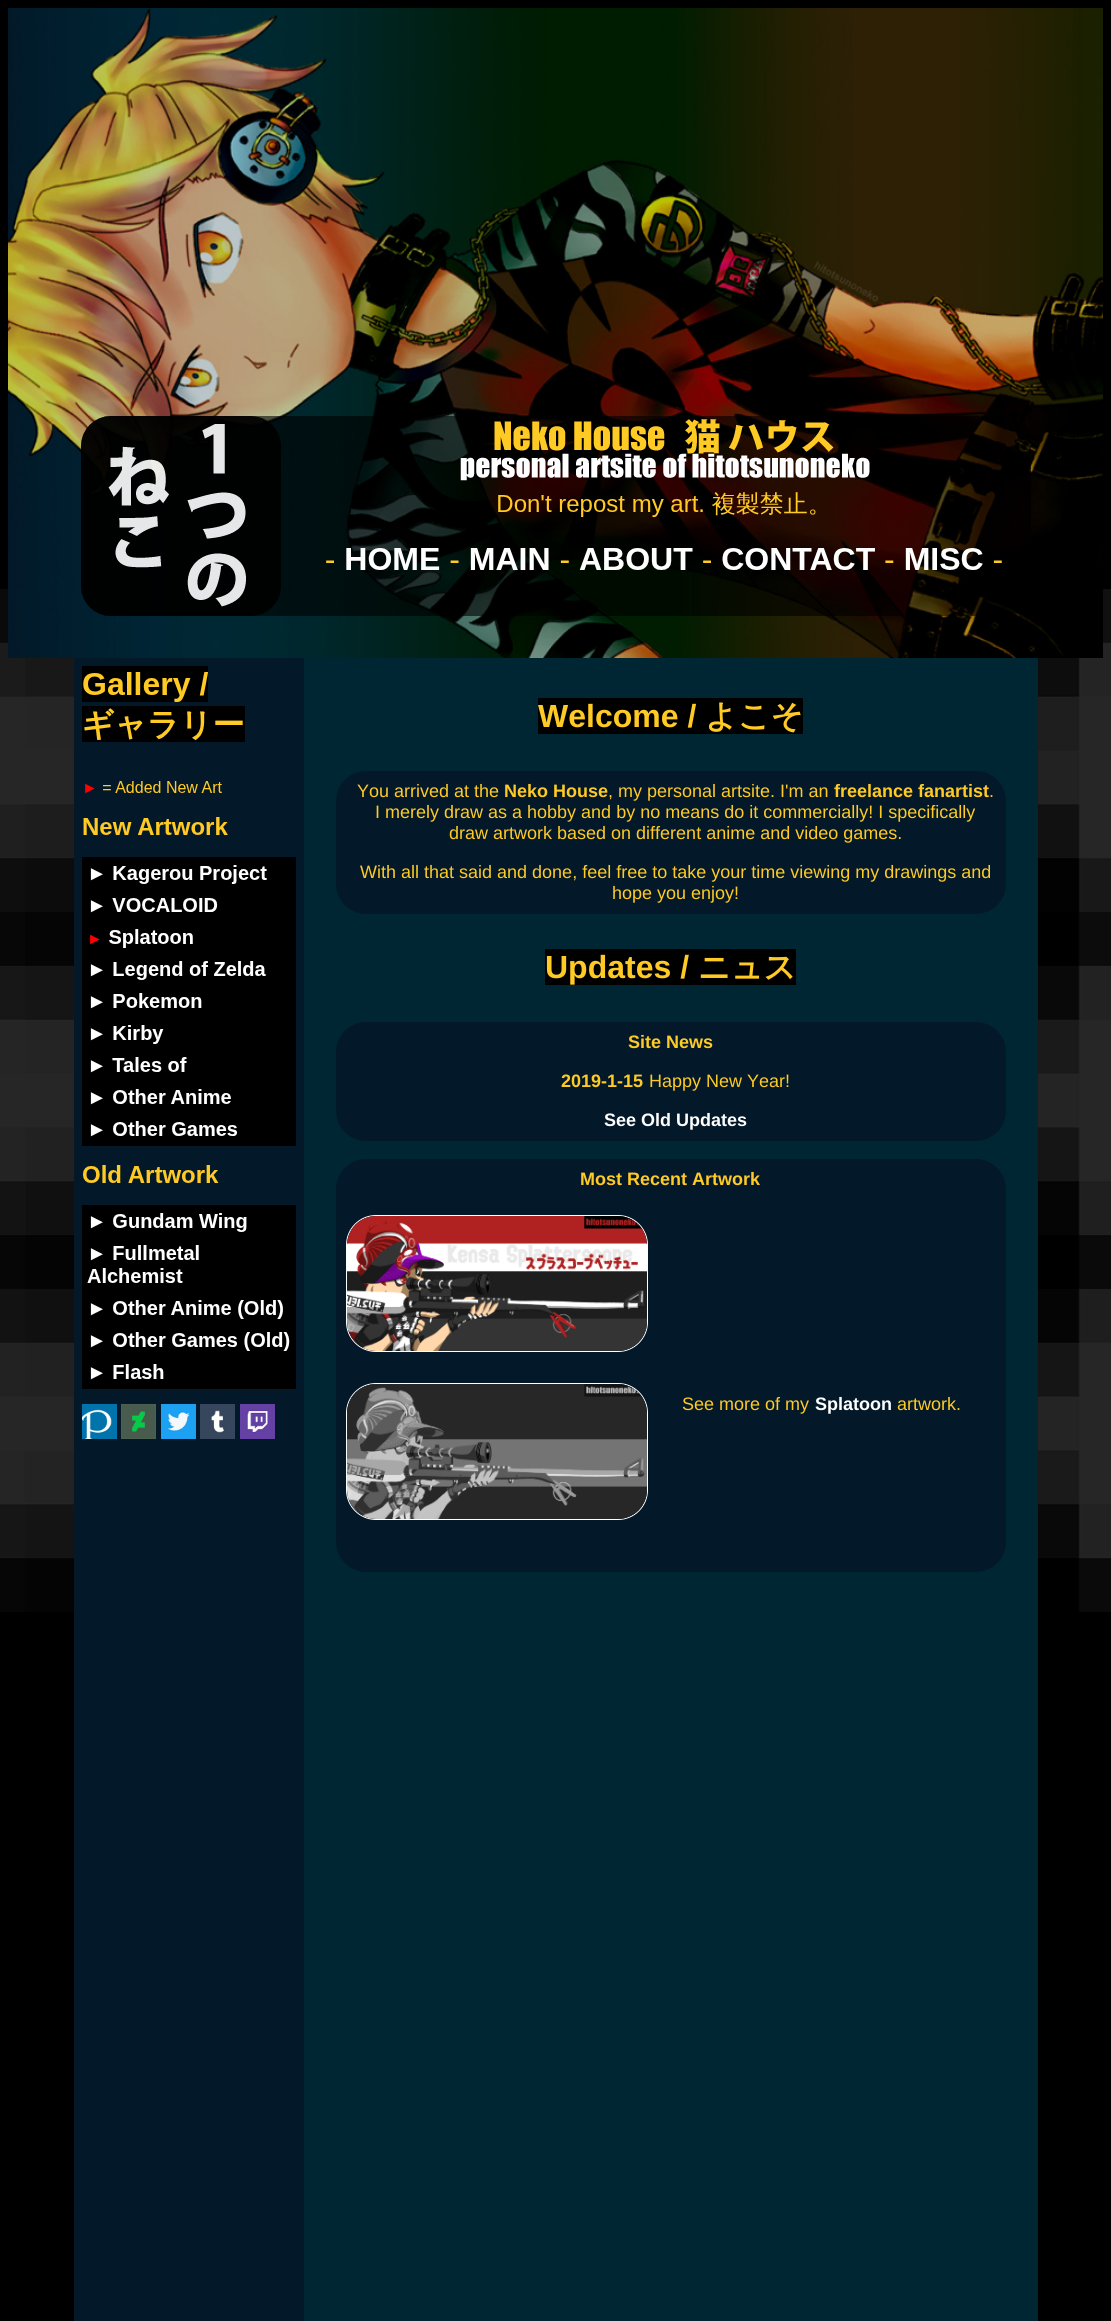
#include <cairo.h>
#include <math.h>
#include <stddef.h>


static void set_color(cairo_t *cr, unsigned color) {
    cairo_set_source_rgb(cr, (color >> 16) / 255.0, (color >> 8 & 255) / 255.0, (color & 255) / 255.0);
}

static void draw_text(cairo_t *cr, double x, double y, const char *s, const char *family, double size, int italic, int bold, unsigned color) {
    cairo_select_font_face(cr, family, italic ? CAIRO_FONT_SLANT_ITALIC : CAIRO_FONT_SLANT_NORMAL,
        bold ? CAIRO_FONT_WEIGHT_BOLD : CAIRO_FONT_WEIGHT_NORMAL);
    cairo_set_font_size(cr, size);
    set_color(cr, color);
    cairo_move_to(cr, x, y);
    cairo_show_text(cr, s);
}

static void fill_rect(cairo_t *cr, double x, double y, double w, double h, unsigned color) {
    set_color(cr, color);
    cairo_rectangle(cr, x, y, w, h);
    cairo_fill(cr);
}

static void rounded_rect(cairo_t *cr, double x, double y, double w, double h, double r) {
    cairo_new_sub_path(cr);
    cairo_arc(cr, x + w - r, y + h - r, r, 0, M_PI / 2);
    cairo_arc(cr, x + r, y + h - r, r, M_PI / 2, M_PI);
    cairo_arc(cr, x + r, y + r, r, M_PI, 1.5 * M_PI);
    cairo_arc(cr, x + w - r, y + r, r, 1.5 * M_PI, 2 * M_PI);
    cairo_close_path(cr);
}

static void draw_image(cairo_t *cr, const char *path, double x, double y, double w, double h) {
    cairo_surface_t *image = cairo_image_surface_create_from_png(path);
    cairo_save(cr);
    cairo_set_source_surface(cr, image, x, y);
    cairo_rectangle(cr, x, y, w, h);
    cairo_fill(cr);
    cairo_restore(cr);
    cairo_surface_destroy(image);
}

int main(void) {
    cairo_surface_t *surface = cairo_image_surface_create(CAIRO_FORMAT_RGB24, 1111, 2321);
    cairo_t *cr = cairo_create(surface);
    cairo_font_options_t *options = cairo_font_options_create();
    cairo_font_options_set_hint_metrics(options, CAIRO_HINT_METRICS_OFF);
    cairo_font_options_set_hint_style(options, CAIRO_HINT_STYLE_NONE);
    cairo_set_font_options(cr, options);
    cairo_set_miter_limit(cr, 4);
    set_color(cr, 0x000000);
    cairo_paint(cr);
    draw_image(cr, "assets/img1.png", 0, 589, 1111, 1023);
    draw_image(cr, "assets/img2.png", 8, 8, 1095, 650);
    fill_rect(cr, 304, 658, 734, 1663, 0x002633);
    draw_image(cr, "assets/img3.png", 74, 658, 230, 1663);
    fill_rect(cr, 538, 698, 265, 36, 0x000000);
    draw_text(cr, 538, 727, "Welcome /", "Liberation Sans", 32, 0, 1, 0xFFCA24);
    draw_text(cr, 705, 727, "よこそ", "WenQuanYi Zen Hei", 32, 0, 1, 0xFFCA24);
    set_color(cr, 0x031929);
    rounded_rect(cr, 336, 771, 670, 143, 30);
    cairo_fill(cr);
    draw_text(cr, 357, 797, "You arrived at the", "Liberation Sans", 18, 0, 0, 0xFFCA24);
    draw_text(cr, 504, 797, "Neko House", "Liberation Sans", 18, 0, 1, 0xFFCA24);
    draw_text(cr, 608, 797, ", my personal artsite. I'm an", "Liberation Sans", 18, 0, 0, 0xFFCA24);
    draw_text(cr, 834, 797, "freelance fanartist", "Liberation Sans", 18, 0, 1, 0xFFCA24);
    draw_text(cr, 989, 797, ".", "Liberation Sans", 18, 0, 0, 0xFFCA24);
    draw_text(cr, 375, 818, "I merely draw as a hobby and by no means do it commercially! I specifically", "Liberation Sans", 18, 0, 0, 0xFFCA24);
    draw_text(cr, 449, 839, "draw artwork based on different anime and video games.", "Liberation Sans", 18, 0, 0, 0xFFCA24);
    draw_text(cr, 360, 878, "With all that said and done, feel free to take your time viewing my drawings and", "Liberation Sans", 18, 0, 0, 0xFFCA24);
    draw_text(cr, 612, 899, "hope you enjoy!", "Liberation Sans", 18, 0, 0, 0xFFCA24);
    fill_rect(cr, 545, 949, 251, 36, 0x000000);
    draw_text(cr, 545, 978, "Updates /", "Liberation Sans", 32, 0, 1, 0xFFCA24);
    draw_text(cr, 698, 978, "ニュス", "WenQuanYi Zen Hei", 32, 0, 1, 0xFFCA24);
    set_color(cr, 0x031929);
    rounded_rect(cr, 336, 1022, 670, 119, 30);
    cairo_fill(cr);
    draw_text(cr, 628, 1048, "Site News", "Liberation Sans", 18, 0, 1, 0xFFCA24);
    draw_text(cr, 561, 1087, "2019-1-15", "Liberation Sans", 18, 0, 1, 0xFFCA24);
    draw_text(cr, 649, 1087, "Happy New Year!", "Liberation Sans", 18, 0, 0, 0xFFCA24);
    draw_text(cr, 604, 1126, "See Old Updates", "Liberation Sans", 18, 0, 1, 0xFFFFFF);
    set_color(cr, 0x031929);
    rounded_rect(cr, 336, 1159, 670, 413, 30);
    cairo_fill(cr);
    draw_text(cr, 580, 1185, "Most Recent Artwork", "Liberation Sans", 18, 0, 1, 0xFFCA24);
    rounded_rect(cr, 346.5, 1215.5, 301, 136, 29.5);
    set_color(cr, 0xFFFFFF);
    cairo_set_line_width(cr, 1);
    cairo_stroke(cr);
    draw_image(cr, "assets/img4.png", 347, 1216, 300, 135);
    rounded_rect(cr, 346.5, 1383.5, 301, 136, 29.5);
    cairo_stroke(cr);
    draw_image(cr, "assets/img5.png", 347, 1384, 300, 135);
    draw_text(cr, 682, 1410, "See more of my", "Liberation Sans", 18, 0, 0, 0xFFCA24);
    draw_text(cr, 815, 1410, "Splatoon", "Liberation Sans", 18, 0, 1, 0xFFFFFF);
    draw_text(cr, 897, 1410, "artwork.", "Liberation Sans", 18, 0, 0, 0xFFCA24);
    cairo_surface_write_to_png(surface, "output.png");
    cairo_font_options_destroy(options);
    cairo_destroy(cr);
    cairo_surface_destroy(surface);
    return 0;
}
